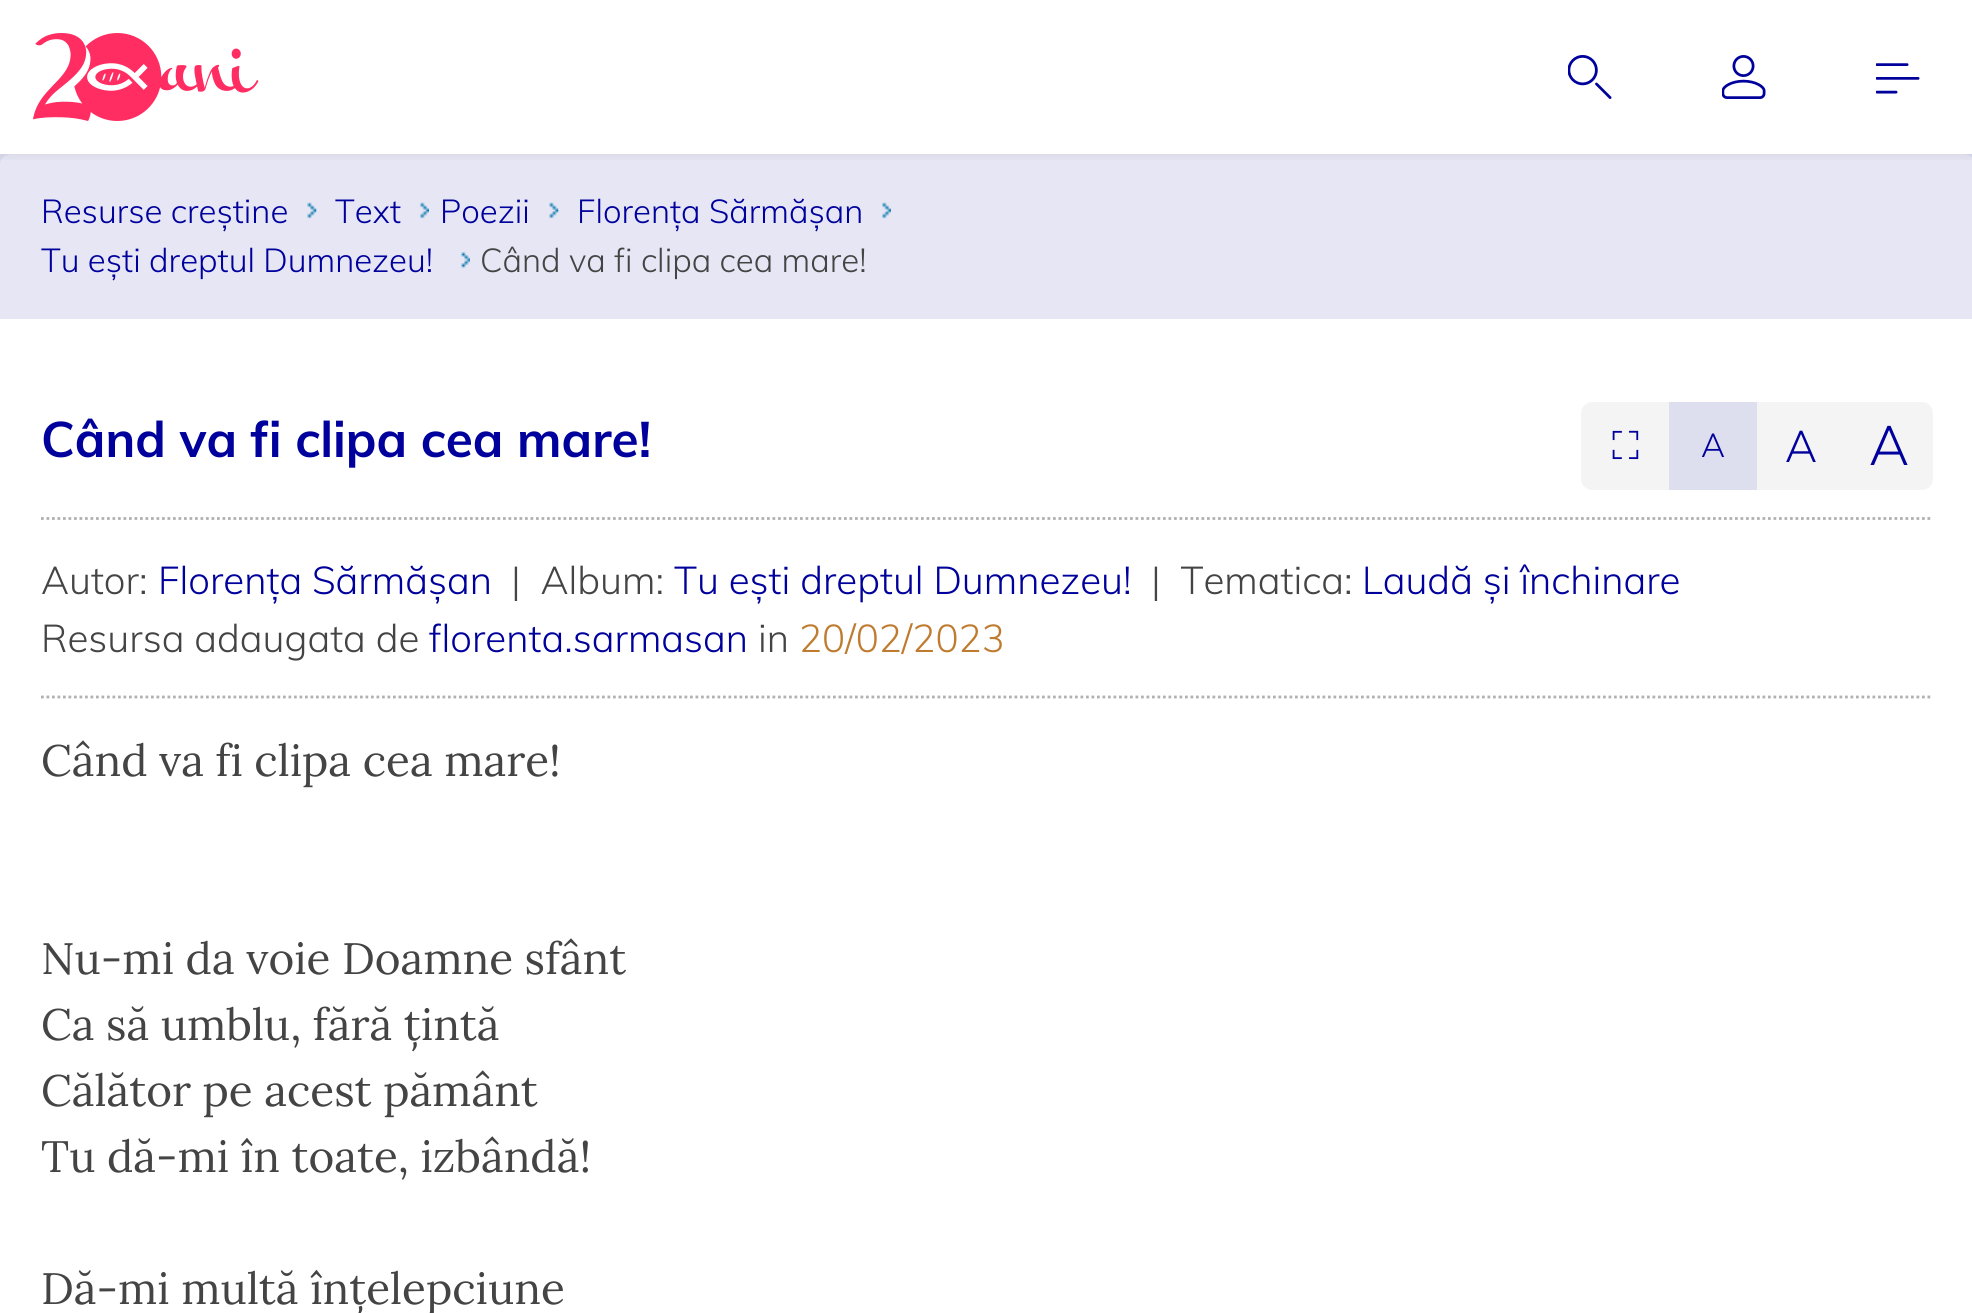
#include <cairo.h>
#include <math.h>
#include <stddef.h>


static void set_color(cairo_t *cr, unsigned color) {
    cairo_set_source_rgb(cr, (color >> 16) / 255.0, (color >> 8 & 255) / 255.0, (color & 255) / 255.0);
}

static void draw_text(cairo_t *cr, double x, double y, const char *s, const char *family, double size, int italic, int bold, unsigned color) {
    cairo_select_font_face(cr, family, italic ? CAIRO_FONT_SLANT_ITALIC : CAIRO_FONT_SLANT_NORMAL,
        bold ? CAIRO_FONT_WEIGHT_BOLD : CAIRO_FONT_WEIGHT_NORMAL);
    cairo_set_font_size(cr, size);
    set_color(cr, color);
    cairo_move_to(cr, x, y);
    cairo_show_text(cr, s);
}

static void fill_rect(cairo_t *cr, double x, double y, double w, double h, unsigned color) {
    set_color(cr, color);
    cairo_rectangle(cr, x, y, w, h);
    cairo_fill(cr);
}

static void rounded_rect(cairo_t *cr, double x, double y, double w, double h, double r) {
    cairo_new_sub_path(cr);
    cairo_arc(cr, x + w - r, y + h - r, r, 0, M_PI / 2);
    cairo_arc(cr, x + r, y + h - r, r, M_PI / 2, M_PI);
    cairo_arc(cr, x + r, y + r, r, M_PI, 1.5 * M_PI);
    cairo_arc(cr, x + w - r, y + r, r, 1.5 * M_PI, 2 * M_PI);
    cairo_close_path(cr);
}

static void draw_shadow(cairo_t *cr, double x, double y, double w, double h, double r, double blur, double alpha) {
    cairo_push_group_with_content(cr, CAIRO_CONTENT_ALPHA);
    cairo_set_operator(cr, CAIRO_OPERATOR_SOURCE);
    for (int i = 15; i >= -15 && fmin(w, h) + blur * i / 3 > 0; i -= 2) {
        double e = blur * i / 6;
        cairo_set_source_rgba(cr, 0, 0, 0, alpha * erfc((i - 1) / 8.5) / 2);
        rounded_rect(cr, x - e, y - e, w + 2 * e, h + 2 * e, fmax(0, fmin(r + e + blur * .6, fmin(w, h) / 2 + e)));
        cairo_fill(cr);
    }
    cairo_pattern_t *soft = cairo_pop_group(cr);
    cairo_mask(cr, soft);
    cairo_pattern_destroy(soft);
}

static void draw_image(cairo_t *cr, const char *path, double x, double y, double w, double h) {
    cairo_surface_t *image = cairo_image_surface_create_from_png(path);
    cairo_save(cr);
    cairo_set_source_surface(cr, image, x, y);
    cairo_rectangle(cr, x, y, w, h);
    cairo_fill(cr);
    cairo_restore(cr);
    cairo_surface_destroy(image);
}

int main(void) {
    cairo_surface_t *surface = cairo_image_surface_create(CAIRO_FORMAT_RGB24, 1972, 1313);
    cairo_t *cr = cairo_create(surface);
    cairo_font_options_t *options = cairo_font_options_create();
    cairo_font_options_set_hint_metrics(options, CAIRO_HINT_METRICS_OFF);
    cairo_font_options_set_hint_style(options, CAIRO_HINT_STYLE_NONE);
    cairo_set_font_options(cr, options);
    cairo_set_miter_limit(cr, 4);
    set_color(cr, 0xFFFFFF);
    cairo_paint(cr);
    fill_rect(cr, 0, 154, 1972, 11, 0xF2F3FA);
    set_color(cr, 0xFFFFFF);
    rounded_rect(cr, 0, 154, 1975, 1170, 11);
    cairo_fill(cr);
    cairo_set_source_rgba(cr, 0, 0, 0.608, 0.1);
    cairo_rectangle(cr, 0, 154, 1972, 165);
    cairo_fill(cr);
    cairo_save(cr);
    cairo_rectangle(cr, 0, 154, 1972, 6);
    cairo_clip(cr);
    set_color(cr, 0x000000);
    draw_shadow(cr, 0, 0, 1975, 154, 0, 7, 0.1);
    cairo_restore(cr);
    draw_image(cr, "assets/img1.png", 33, 33, 226, 88);
    draw_image(cr, "assets/img2.png", 1568, 55, 44, 44);
    draw_image(cr, "assets/img3.png", 1722, 55, 44, 44);
    draw_image(cr, "assets/img4.png", 1876, 63, 44, 31);
    draw_text(cr, 41, 223, "Resurse creștine", "Muli Light", 33, 0, 0, 0x00009C);
    draw_image(cr, "assets/img5.png", 307, 202, 10, 17);
    draw_text(cr, 335, 223, "Text", "Muli Light", 33, 0, 0, 0x00009C);
    draw_image(cr, "assets/img6.png", 420, 202, 9, 17);
    draw_text(cr, 440, 223, "Poezii", "Muli Light", 33, 0, 0, 0x00009C);
    draw_image(cr, "assets/img7.png", 549, 202, 10, 17);
    draw_text(cr, 577, 223, "Florența Sărmășan", "Muli Light", 33, 0, 0, 0x00009C);
    draw_image(cr, "assets/img6.png", 882, 202, 9, 17);
    draw_text(cr, 41, 272, "Tu ești dreptul Dumnezeu!", "Muli Light", 33, 0, 0, 0x00009C);
    draw_image(cr, "assets/img8.png", 461, 252, 9, 16);
    draw_text(cr, 480, 272, "Când va fi clipa cea mare!", "Muli Light", 33, 0, 0, 0x444444);
    cairo_new_path(cr);
    cairo_move_to(cr, 41, 518.5);
    cairo_line_to(cr, 1933, 518.5);
    set_color(cr, 0xB1B1B1);
    cairo_set_line_width(cr, 2.8);
    cairo_set_dash(cr, (double[]){2.75, 2.75}, 2, 0);
    cairo_stroke(cr);
    draw_text(cr, 41, 457, "Când va fi clipa cea mare!", "Muli", 49.5, 0, 1, 0x00009C);
    set_color(cr, 0xF4F4F4);
    cairo_new_path(cr);
    cairo_move_to(cr, 1592, 402);
    cairo_line_to(cr, 1669, 402);
    cairo_line_to(cr, 1669, 490);
    cairo_line_to(cr, 1592, 490);
    cairo_curve_to(cr, 1586, 490, 1581, 485, 1581, 479);
    cairo_line_to(cr, 1581, 413);
    cairo_curve_to(cr, 1581, 407, 1586, 402, 1592, 402);
    cairo_close_path(cr);
    cairo_fill(cr);
    draw_text(cr, 1612, 459, "⛶", "FreeSans", 38.5, 0, 0, 0x00009C);
    fill_rect(cr, 1669, 402, 88, 88, 0xDDDEEE);
    draw_text(cr, 1701, 457, "A", "Muli Light", 33, 0, 0, 0x00009C);
    fill_rect(cr, 1757, 402, 88, 88, 0xF4F4F4);
    draw_text(cr, 1785, 462, "A", "Muli Light", 44, 0, 0, 0x00009C);
    set_color(cr, 0xF4F4F4);
    cairo_new_path(cr);
    cairo_move_to(cr, 1845, 402);
    cairo_line_to(cr, 1922, 402);
    cairo_curve_to(cr, 1928, 402, 1933, 407, 1933, 413);
    cairo_line_to(cr, 1933, 479);
    cairo_curve_to(cr, 1933, 485, 1928, 490, 1922, 490);
    cairo_line_to(cr, 1845, 490);
    cairo_close_path(cr);
    cairo_fill(cr);
    draw_text(cr, 1869, 465, "A", "Muli Light", 55, 0, 0, 0x00009C);
    cairo_new_path(cr);
    cairo_move_to(cr, 41, 697);
    cairo_line_to(cr, 1933, 697);
    set_color(cr, 0xB1B1B1);
    cairo_stroke(cr);
    draw_text(cr, 41, 594, "Autor:", "Muli Light", 38.5, 0, 0, 0x444444);
    draw_text(cr, 158, 594, "Florența Sărmășan", "Muli Light", 38.5, 0, 0, 0x00009C);
    draw_text(cr, 511, 594, "|  Album:", "Muli Light", 38.5, 0, 0, 0x444444);
    draw_text(cr, 674, 594, "Tu ești dreptul Dumnezeu!", "Muli Light", 38.5, 0, 0, 0x00009C);
    draw_text(cr, 1151, 594, "|  Tematica:", "Muli Light", 38.5, 0, 0, 0x444444);
    draw_text(cr, 1362, 594, "Laudă și închinare", "Muli Light", 38.5, 0, 0, 0x00009C);
    draw_text(cr, 41, 652, "Resursa adaugata de", "Muli Light", 38.5, 0, 0, 0x444444);
    draw_text(cr, 429, 652, "florenta.sarmasan", "Muli Light", 38.5, 0, 0, 0x00009C);
    draw_text(cr, 758, 652, "in", "Muli Light", 38.5, 0, 0, 0x444444);
    draw_text(cr, 799, 652, "20/02/2023", "Muli Light", 38.5, 0, 0, 0xBF7C30);
    draw_text(cr, 41, 776, "Când va fi clipa cea mare!", "Lora", 44, 0, 0, 0x444444);
    draw_text(cr, 41, 974, "Nu-mi da voie Doamne sfânt", "Lora", 44, 0, 0, 0x444444);
    draw_text(cr, 41, 1040, "Ca să umblu, fără țintă", "Lora", 44, 0, 0, 0x444444);
    draw_text(cr, 41, 1106, "Călător pe acest pământ", "Lora", 44, 0, 0, 0x444444);
    draw_text(cr, 41, 1172, "Tu dă-mi în toate, izbândă!", "Lora", 44, 0, 0, 0x444444);
    draw_text(cr, 41, 1304, "Dă-mi multă înțelepciune", "Lora", 44, 0, 0, 0x444444);
    cairo_surface_write_to_png(surface, "output.png");
    cairo_font_options_destroy(options);
    cairo_destroy(cr);
    cairo_surface_destroy(surface);
    return 0;
}
